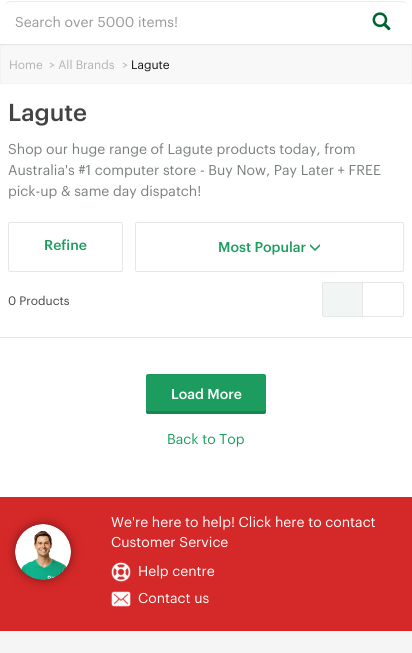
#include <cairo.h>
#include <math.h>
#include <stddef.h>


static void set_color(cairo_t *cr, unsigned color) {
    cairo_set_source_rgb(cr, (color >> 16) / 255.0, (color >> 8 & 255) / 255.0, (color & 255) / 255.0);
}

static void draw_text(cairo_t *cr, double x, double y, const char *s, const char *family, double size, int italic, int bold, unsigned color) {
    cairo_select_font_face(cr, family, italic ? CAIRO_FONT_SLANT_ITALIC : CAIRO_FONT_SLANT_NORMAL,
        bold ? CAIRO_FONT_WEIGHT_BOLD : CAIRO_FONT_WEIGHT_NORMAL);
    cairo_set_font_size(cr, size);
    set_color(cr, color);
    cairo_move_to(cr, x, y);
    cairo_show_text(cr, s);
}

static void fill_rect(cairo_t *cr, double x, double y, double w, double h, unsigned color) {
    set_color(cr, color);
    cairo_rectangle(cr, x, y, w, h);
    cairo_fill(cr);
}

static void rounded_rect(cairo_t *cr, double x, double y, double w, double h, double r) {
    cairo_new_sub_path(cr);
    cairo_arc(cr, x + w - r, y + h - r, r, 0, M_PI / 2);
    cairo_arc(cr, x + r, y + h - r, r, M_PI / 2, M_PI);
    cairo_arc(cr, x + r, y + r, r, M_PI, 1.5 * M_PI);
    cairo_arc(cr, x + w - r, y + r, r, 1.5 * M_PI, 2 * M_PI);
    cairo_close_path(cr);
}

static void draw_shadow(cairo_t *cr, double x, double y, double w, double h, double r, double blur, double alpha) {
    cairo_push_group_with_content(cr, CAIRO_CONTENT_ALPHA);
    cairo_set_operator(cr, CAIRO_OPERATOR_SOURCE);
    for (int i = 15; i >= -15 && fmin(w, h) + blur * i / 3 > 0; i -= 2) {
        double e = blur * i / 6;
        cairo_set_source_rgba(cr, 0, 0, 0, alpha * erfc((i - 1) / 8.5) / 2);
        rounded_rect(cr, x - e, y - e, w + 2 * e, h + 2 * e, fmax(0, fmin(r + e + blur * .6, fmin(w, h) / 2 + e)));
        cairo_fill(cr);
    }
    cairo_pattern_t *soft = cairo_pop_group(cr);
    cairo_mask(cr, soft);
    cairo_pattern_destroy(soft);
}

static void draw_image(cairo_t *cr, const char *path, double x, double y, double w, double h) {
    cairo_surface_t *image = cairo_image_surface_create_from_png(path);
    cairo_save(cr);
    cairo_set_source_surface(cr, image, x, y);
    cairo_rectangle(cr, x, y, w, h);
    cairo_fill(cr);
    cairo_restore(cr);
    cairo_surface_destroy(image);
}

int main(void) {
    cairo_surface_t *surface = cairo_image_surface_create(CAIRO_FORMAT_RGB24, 412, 653);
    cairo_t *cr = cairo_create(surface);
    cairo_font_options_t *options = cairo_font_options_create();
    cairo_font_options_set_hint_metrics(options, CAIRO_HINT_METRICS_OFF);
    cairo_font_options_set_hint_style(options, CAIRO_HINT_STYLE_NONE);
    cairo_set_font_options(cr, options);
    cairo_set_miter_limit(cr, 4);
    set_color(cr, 0xFFFFFF);
    cairo_paint(cr);
    fill_rect(cr, 0, 44, 412, 1, 0xE6E6E6);
    set_color(cr, 0xECECEC);
    cairo_new_path(cr);
    cairo_move_to(cr, 10, 2);
    cairo_line_to(cr, 402, 2);
    cairo_curve_to(cr, 405, 2, 407, 4, 407, 7);
    cairo_line_to(cr, 407, 6);
    cairo_curve_to(cr, 407, 3, 405, 1, 402, 1);
    cairo_line_to(cr, 10, 1);
    cairo_curve_to(cr, 7, 1, 5, 3, 5, 6);
    cairo_line_to(cr, 5, 7);
    cairo_curve_to(cr, 5, 4, 7, 2, 10, 2);
    cairo_close_path(cr);
    cairo_fill(cr);
    draw_text(cr, 15, 27, "Search over 5000 items!", "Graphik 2", 14, 0, 0, 0x999999);
    draw_image(cr, "assets/img1.png", 372, 12, 19, 19);
    set_color(cr, 0xF8F8F8);
    cairo_rectangle(cr, 0.5, 45.5, 411, 38);
    cairo_fill_preserve(cr);
    set_color(cr, 0xF2F2F2);
    cairo_set_line_width(cr, 1);
    cairo_stroke(cr);
    draw_text(cr, 9, 69, "Home", "Graphik", 12, 0, 0, 0xB3B3B3);
    draw_text(cr, 49, 69, "> All Brands", "Graphik", 12, 0, 0, 0xB3B3B3);
    draw_text(cr, 122, 69, ">", "Graphik", 12, 0, 0, 0xB3B3B3);
    draw_text(cr, 131, 69, "Lagute", "Graphik", 12, 0, 0, 0x111211);
    draw_text(cr, 8, 121, "Lagute", "Graphik Medium", 24, 0, 0, 0x434343);
    draw_text(cr, 8, 154, "Shop our huge range of Lagute products today, from", "Graphik", 14, 0, 0, 0x79807C);
    draw_text(cr, 8, 175, "Australia's #1 computer store - Buy Now, Pay Later + FREE", "Graphik", 14, 0, 0, 0x79807C);
    draw_text(cr, 8, 196, "pick-up & same day dispatch!", "Graphik", 14, 0, 0, 0x79807C);
    rounded_rect(cr, 8.5, 222.5, 114, 49, 1.5);
    set_color(cr, 0xE6E6E6);
    cairo_stroke(cr);
    draw_text(cr, 44, 250, "Refine", "Graphik Medium", 14, 0, 0, 0x1C9C5E);
    rounded_rect(cr, 135.5, 222.5, 268, 49, 1.5);
    set_color(cr, 0xE6E6E6);
    cairo_stroke(cr);
    draw_text(cr, 218, 252, "Most Popular", "Graphik Medium", 14, 0, 0, 0x1C9C5E);
    draw_image(cr, "assets/img2.png", 310, 244, 10, 7);
    draw_text(cr, 8, 305, "0 Products", "Graphik", 12, 0, 0, 0x434343);
    rounded_rect(cr, 322.5, 282.5, 81, 34, 1.5);
    set_color(cr, 0xE6E6E6);
    cairo_stroke(cr);
    cairo_set_source_rgba(cr, 0.894, 0.929, 0.914, 0.5);
    cairo_rectangle(cr, 323, 283, 39, 34);
    cairo_fill(cr);
    fill_rect(cr, 362, 283, 1, 34, 0xE6E6E6);
    fill_rect(cr, 0, 337, 412, 1, 0xE6E6E6);
    set_color(cr, 0x1C9C5E);
    rounded_rect(cr, 146, 374, 120, 40, 2);
    cairo_fill(cr);
    cairo_set_source_rgba(cr, 0, 0, 0, 0.15);
    cairo_new_path(cr);
    cairo_move_to(cr, 146, 409);
    cairo_line_to(cr, 146, 412);
    cairo_curve_to(cr, 146, 413, 147, 414, 148, 414);
    cairo_line_to(cr, 264, 414);
    cairo_curve_to(cr, 265, 414, 266, 413, 266, 412);
    cairo_line_to(cr, 266, 409);
    cairo_curve_to(cr, 266, 410, 265, 411, 264, 411);
    cairo_line_to(cr, 148, 411);
    cairo_line_to(cr, 146, 410);
    cairo_close_path(cr);
    cairo_fill(cr);
    draw_text(cr, 171, 399, "Load More", "Graphik Medium", 14, 0, 0, 0xFFFFFF);
    draw_text(cr, 167, 444, "Back to Top", "Graphik", 14, 0, 0, 0x1C9C5E);
    fill_rect(cr, 0, 497, 412, 134, 0xD52828);
    set_color(cr, 0x000000);
    draw_shadow(cr, 15, 524, 56, 56, 28, 5, 0.4);
    draw_image(cr, "assets/img3.png", 15, 524, 56, 56);
    draw_text(cr, 111, 527, "We're here to help! Click here to contact", "Graphik", 14, 0, 0, 0xFFFFFF);
    draw_text(cr, 111, 547, "Customer Service", "Graphik", 14, 0, 0, 0xFFFFFF);
    draw_image(cr, "assets/img4.png", 111, 562, 20, 20);
    draw_text(cr, 138, 576, "Help centre", "Graphik", 14, 0, 0, 0xFFFFFF);
    draw_image(cr, "assets/img5.png", 111, 591, 20, 16);
    draw_text(cr, 138, 603, "Contact us", "Graphik", 14, 0, 0, 0xFFFFFF);
    fill_rect(cr, 0, 631, 412, 22, 0xF5F5F5);
    cairo_surface_write_to_png(surface, "output.png");
    cairo_font_options_destroy(options);
    cairo_destroy(cr);
    cairo_surface_destroy(surface);
    return 0;
}
